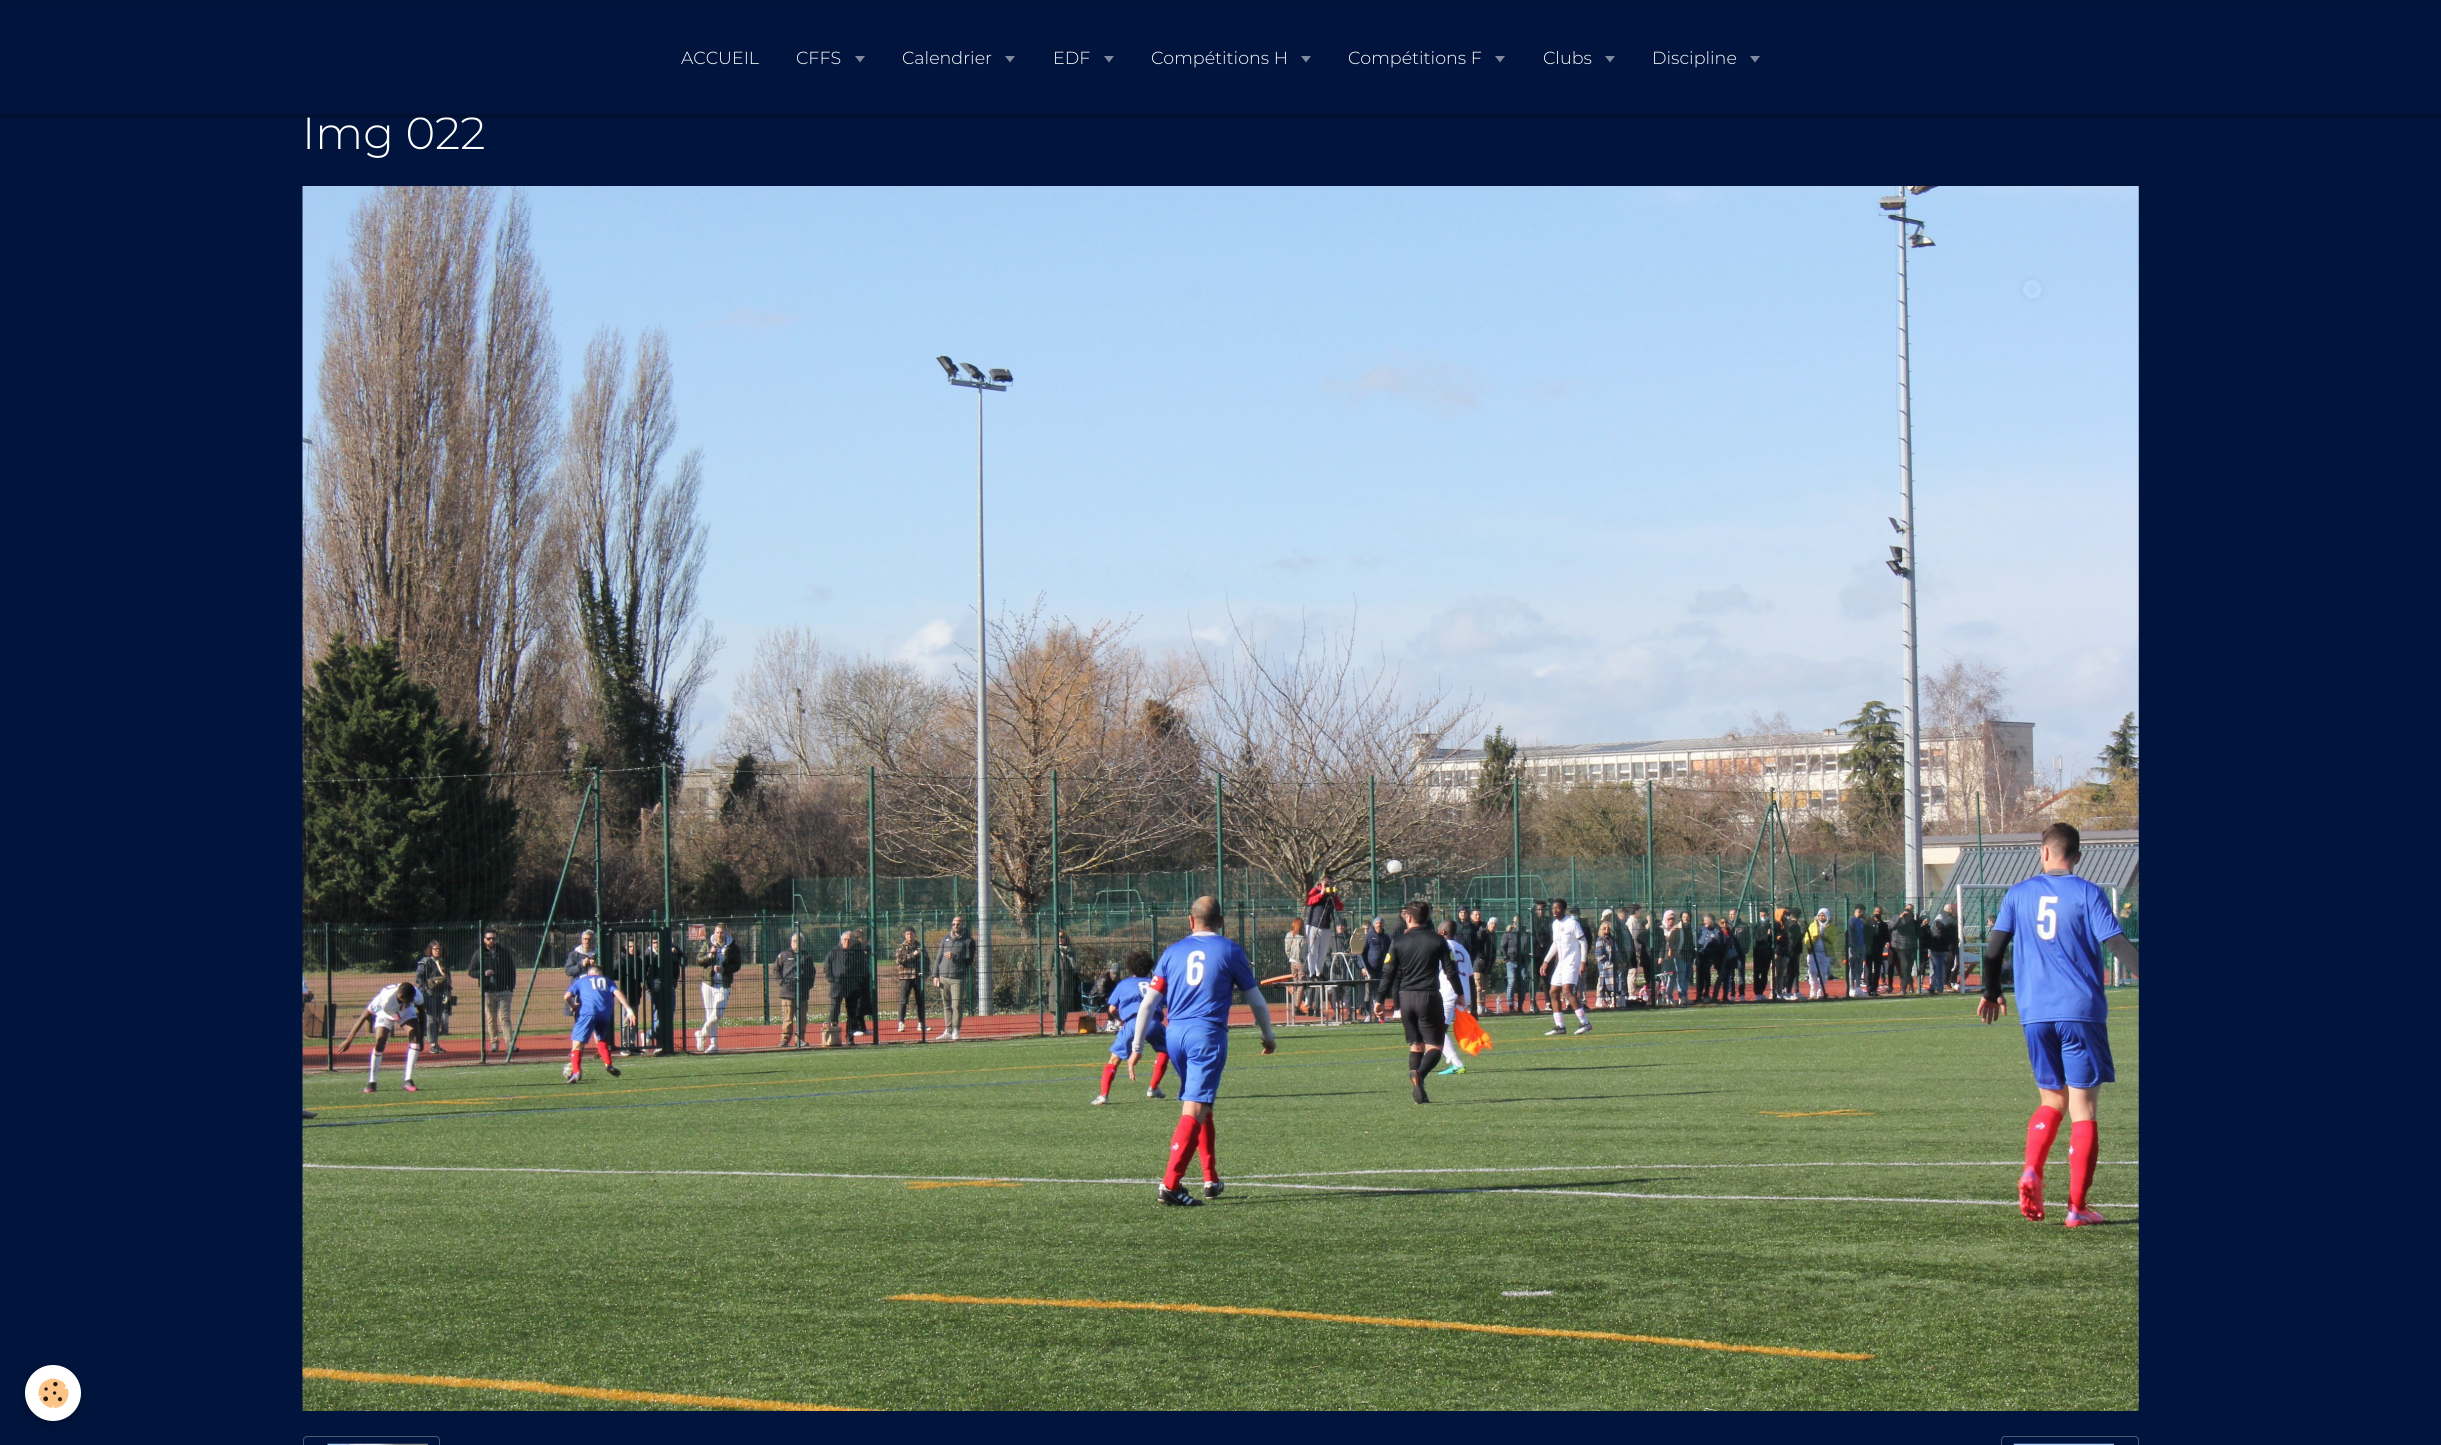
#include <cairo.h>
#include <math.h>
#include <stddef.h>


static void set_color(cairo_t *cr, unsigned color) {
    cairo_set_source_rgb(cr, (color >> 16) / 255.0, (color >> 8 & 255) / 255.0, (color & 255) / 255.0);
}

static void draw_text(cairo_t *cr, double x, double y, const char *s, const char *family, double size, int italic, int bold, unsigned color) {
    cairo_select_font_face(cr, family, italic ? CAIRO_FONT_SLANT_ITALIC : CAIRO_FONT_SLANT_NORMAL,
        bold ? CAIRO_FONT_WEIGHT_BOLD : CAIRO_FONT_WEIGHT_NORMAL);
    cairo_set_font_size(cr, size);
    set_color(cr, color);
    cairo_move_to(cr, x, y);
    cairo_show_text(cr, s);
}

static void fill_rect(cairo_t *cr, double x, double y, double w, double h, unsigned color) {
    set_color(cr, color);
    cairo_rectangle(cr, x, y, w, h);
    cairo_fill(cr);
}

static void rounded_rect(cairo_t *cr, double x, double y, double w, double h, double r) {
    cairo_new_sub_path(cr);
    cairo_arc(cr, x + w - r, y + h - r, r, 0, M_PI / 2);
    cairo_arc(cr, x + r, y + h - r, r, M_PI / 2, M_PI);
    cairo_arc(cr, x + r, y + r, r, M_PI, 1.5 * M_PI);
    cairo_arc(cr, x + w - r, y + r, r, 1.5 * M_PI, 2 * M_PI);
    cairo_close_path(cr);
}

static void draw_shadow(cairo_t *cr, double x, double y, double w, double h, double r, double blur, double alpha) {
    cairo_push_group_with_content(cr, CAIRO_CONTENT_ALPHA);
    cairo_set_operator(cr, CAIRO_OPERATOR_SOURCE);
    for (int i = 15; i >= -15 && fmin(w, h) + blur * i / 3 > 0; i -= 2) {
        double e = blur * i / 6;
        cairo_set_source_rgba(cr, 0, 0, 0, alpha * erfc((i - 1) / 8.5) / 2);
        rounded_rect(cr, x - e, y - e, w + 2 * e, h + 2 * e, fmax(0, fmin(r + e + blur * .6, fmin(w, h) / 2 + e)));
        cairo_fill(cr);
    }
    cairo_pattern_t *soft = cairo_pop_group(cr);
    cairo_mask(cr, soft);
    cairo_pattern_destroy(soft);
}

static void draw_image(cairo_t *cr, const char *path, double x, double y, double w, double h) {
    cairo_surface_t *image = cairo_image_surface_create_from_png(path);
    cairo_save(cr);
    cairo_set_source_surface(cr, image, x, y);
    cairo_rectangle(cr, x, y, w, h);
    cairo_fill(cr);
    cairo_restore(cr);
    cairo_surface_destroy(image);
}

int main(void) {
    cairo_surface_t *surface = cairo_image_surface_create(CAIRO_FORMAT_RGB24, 2441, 1445);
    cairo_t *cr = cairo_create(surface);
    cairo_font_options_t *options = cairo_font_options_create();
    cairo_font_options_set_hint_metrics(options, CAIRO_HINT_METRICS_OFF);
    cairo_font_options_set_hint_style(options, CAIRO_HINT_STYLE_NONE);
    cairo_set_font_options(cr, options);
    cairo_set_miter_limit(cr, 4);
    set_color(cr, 0x00143D);
    cairo_paint(cr);
    draw_text(cr, 302, 149, "Img 022", "Montserrat Light", 45, 0, 0, 0xFFFFFF);
    cairo_set_source_rgba(cr, 0, 0, 0, 0.2);
    cairo_rectangle(cr, 0, 114, 2441, 4);
    cairo_fill(cr);
    fill_rect(cr, 0, 0, 2441, 1, 0x051537);
    draw_text(cr, 681, 64, "ACCUEIL", "Montserrat Light", 17.5, 0, 0, 0xFFFFFF);
    draw_text(cr, 796, 64, "CFFS", "Montserrat Light", 17.5, 0, 0, 0xFFFFFF);
    set_color(cr, 0x808A9E);
    cairo_new_path(cr);
    cairo_move_to(cr, 855, 56);
    cairo_line_to(cr, 865, 56);
    cairo_line_to(cr, 860, 62.5);
    cairo_close_path(cr);
    cairo_fill(cr);
    draw_text(cr, 902, 64, "Calendrier", "Montserrat Light", 17.5, 0, 0, 0xFFFFFF);
    set_color(cr, 0x808A9E);
    cairo_new_path(cr);
    cairo_move_to(cr, 1005, 56);
    cairo_line_to(cr, 1015, 56);
    cairo_line_to(cr, 1010, 62.5);
    cairo_close_path(cr);
    cairo_fill(cr);
    draw_text(cr, 1053, 64, "EDF", "Montserrat Light", 17.5, 0, 0, 0xFFFFFF);
    set_color(cr, 0x808A9E);
    cairo_new_path(cr);
    cairo_move_to(cr, 1104, 56);
    cairo_line_to(cr, 1114, 56);
    cairo_line_to(cr, 1109, 62.5);
    cairo_close_path(cr);
    cairo_fill(cr);
    draw_text(cr, 1151, 64, "Compétitions H", "Montserrat Light", 17.5, 0, 0, 0xFFFFFF);
    set_color(cr, 0x808A9E);
    cairo_new_path(cr);
    cairo_move_to(cr, 1301, 56);
    cairo_line_to(cr, 1311, 56);
    cairo_line_to(cr, 1306, 62.5);
    cairo_close_path(cr);
    cairo_fill(cr);
    draw_text(cr, 1348, 64, "Compétitions F", "Montserrat Light", 17.5, 0, 0, 0xFFFFFF);
    set_color(cr, 0x808A9E);
    cairo_new_path(cr);
    cairo_move_to(cr, 1495, 56);
    cairo_line_to(cr, 1505, 56);
    cairo_line_to(cr, 1500, 62.5);
    cairo_close_path(cr);
    cairo_fill(cr);
    draw_text(cr, 1543, 64, "Clubs", "Montserrat Light", 17.5, 0, 0, 0xFFFFFF);
    set_color(cr, 0x808A9E);
    cairo_new_path(cr);
    cairo_move_to(cr, 1605, 56);
    cairo_line_to(cr, 1615, 56);
    cairo_line_to(cr, 1610, 62.5);
    cairo_close_path(cr);
    cairo_fill(cr);
    draw_text(cr, 1652, 64, "Discipline", "Montserrat Light", 17.5, 0, 0, 0xFFFFFF);
    set_color(cr, 0x808A9E);
    cairo_new_path(cr);
    cairo_move_to(cr, 1750, 56);
    cairo_line_to(cr, 1760, 56);
    cairo_line_to(cr, 1755, 62.5);
    cairo_close_path(cr);
    cairo_fill(cr);
    draw_image(cr, "assets/img1.png", 302, 186, 1837, 1225);
    draw_image(cr, "assets/img2.png", 327, 1443, 101, 2);
    rounded_rect(cr, 303.5, 1436.5, 136, 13, 3.5);
    set_color(cr, 0x4D5B77);
    cairo_set_line_width(cr, 1);
    cairo_stroke(cr);
    draw_image(cr, "assets/img3.png", 2013, 1443, 101, 2);
    rounded_rect(cr, 2001.5, 1436.5, 137, 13, 3.5);
    cairo_stroke(cr);
    set_color(cr, 0x000000);
    draw_shadow(cr, 25, 1369, 56, 56, 28, 6, 0.24);
    set_color(cr, 0xFFFFFF);
    cairo_arc(cr, 53, 1393, 28, 0, 2 * M_PI);
    cairo_fill(cr);
    draw_image(cr, "assets/img4.png", 38, 1378, 31, 30);
    cairo_surface_write_to_png(surface, "output.png");
    cairo_font_options_destroy(options);
    cairo_destroy(cr);
    cairo_surface_destroy(surface);
    return 0;
}
